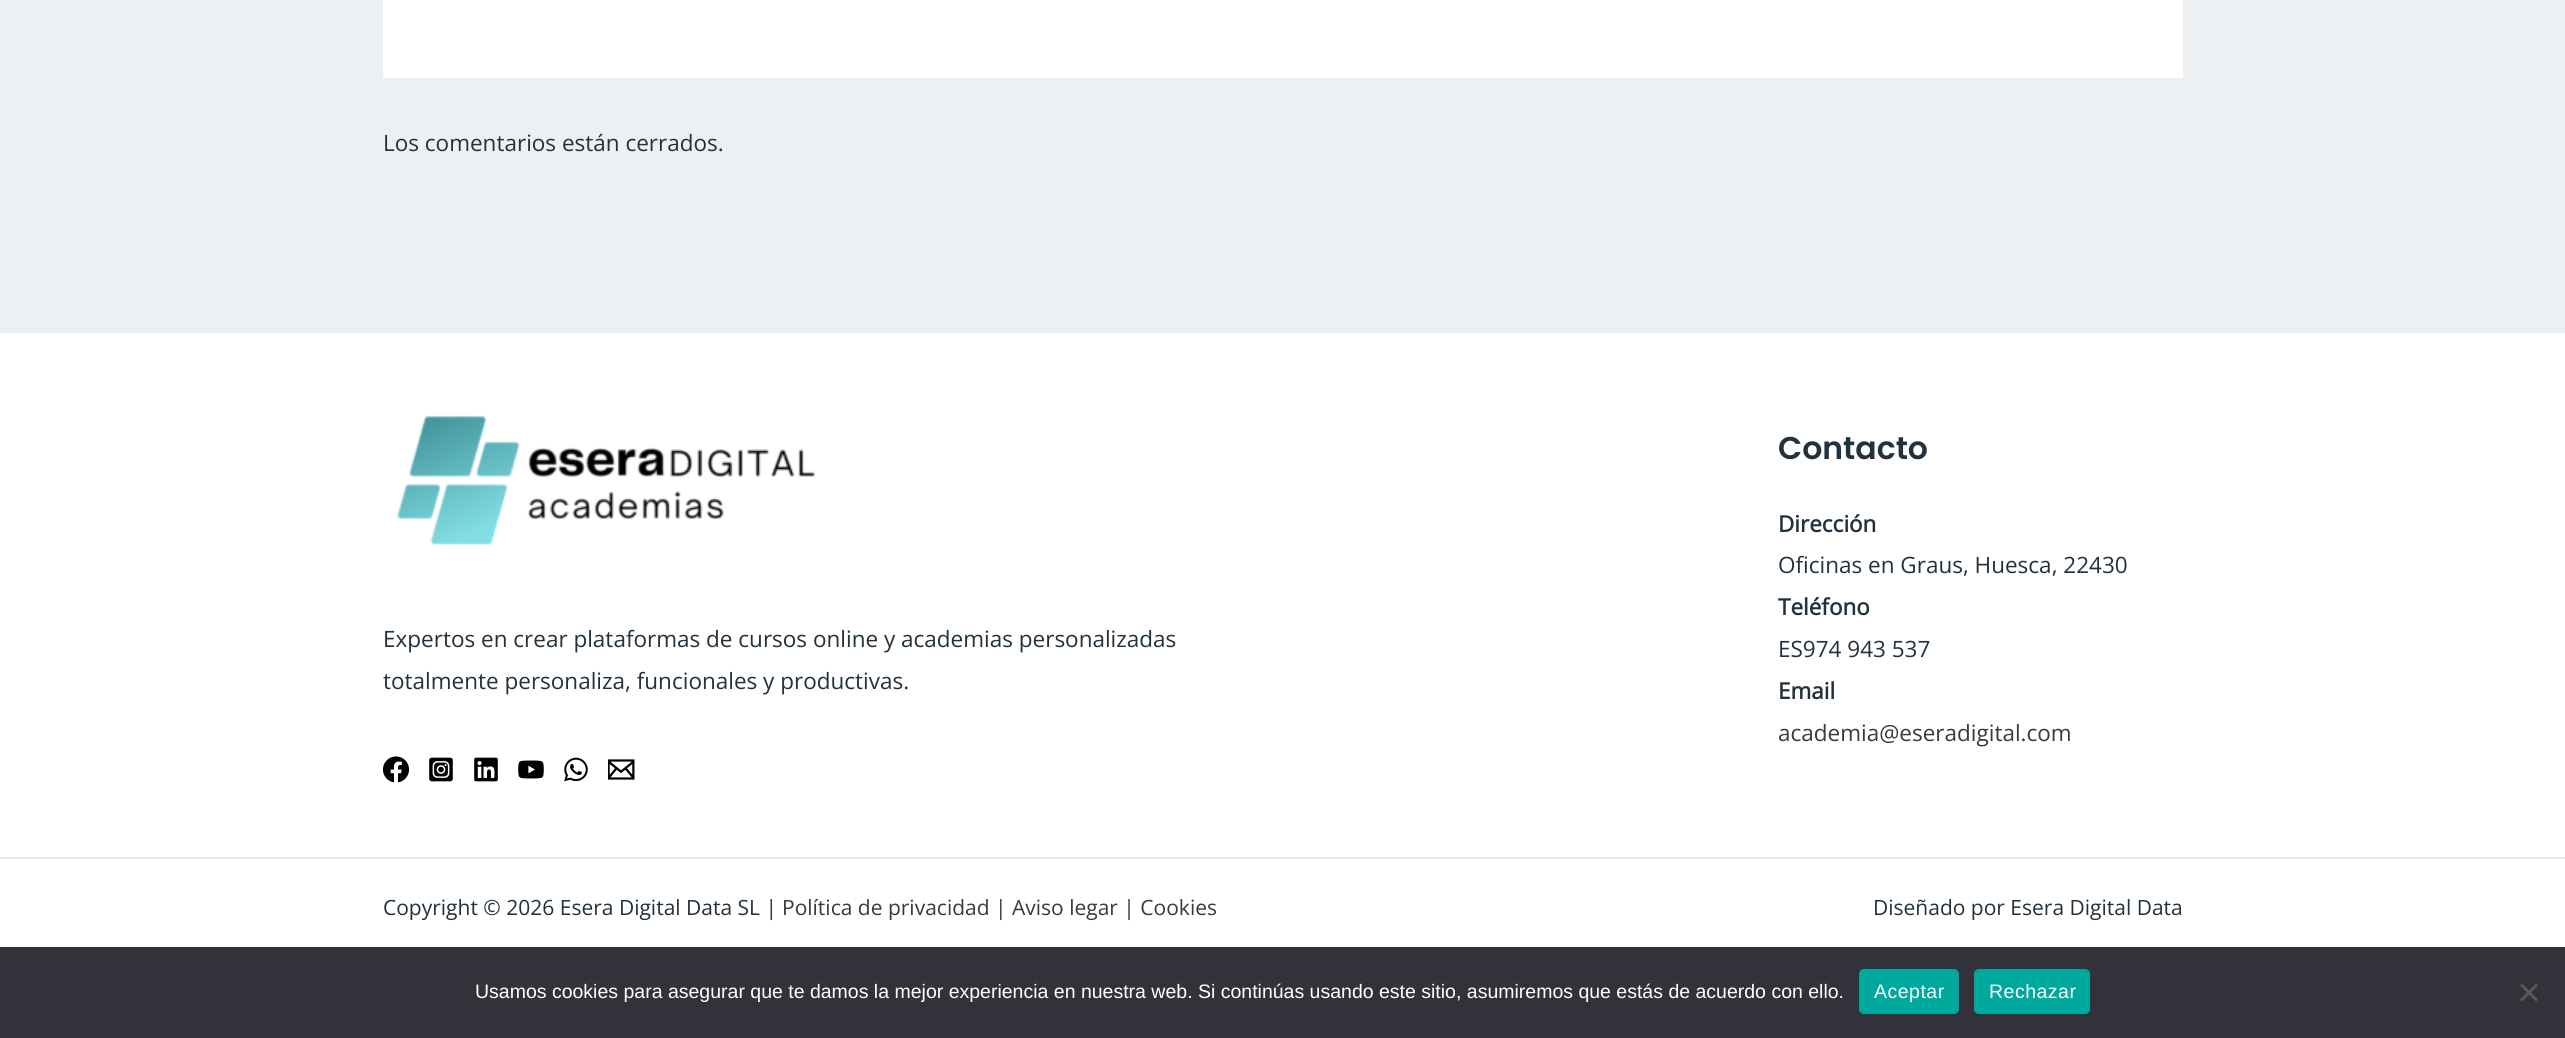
#include <cairo.h>
#include <math.h>
#include <stddef.h>


static void set_color(cairo_t *cr, unsigned color) {
    cairo_set_source_rgb(cr, (color >> 16) / 255.0, (color >> 8 & 255) / 255.0, (color & 255) / 255.0);
}

static void draw_text(cairo_t *cr, double x, double y, const char *s, const char *family, double size, int italic, int bold, unsigned color) {
    cairo_select_font_face(cr, family, italic ? CAIRO_FONT_SLANT_ITALIC : CAIRO_FONT_SLANT_NORMAL,
        bold ? CAIRO_FONT_WEIGHT_BOLD : CAIRO_FONT_WEIGHT_NORMAL);
    cairo_set_font_size(cr, size);
    set_color(cr, color);
    cairo_move_to(cr, x, y);
    cairo_show_text(cr, s);
}

static void draw_spaced(cairo_t *cr, double x, double y, const char *s, double letter, double word) {
    cairo_move_to(cr, x, y);
    while (*s) {
        char ch[5] = {0};
        int n = 0;
        do ch[n++] = *s++; while ((*s & 0xC0) == 0x80);
        cairo_show_text(cr, ch);
        cairo_rel_move_to(cr, letter + word * (*ch == ' '), 0);
    }
}

static void fill_rect(cairo_t *cr, double x, double y, double w, double h, unsigned color) {
    set_color(cr, color);
    cairo_rectangle(cr, x, y, w, h);
    cairo_fill(cr);
}

static void rounded_rect(cairo_t *cr, double x, double y, double w, double h, double r) {
    cairo_new_sub_path(cr);
    cairo_arc(cr, x + w - r, y + h - r, r, 0, M_PI / 2);
    cairo_arc(cr, x + r, y + h - r, r, M_PI / 2, M_PI);
    cairo_arc(cr, x + r, y + r, r, M_PI, 1.5 * M_PI);
    cairo_arc(cr, x + w - r, y + r, r, 1.5 * M_PI, 2 * M_PI);
    cairo_close_path(cr);
}

static void draw_image(cairo_t *cr, const char *path, double x, double y, double w, double h) {
    cairo_surface_t *image = cairo_image_surface_create_from_png(path);
    cairo_save(cr);
    cairo_set_source_surface(cr, image, x, y);
    cairo_rectangle(cr, x, y, w, h);
    cairo_fill(cr);
    cairo_restore(cr);
    cairo_surface_destroy(image);
}

int main(void) {
    cairo_surface_t *surface = cairo_image_surface_create(CAIRO_FORMAT_RGB24, 2565, 1038);
    cairo_t *cr = cairo_create(surface);
    cairo_font_options_t *options = cairo_font_options_create();
    cairo_font_options_set_hint_metrics(options, CAIRO_HINT_METRICS_OFF);
    cairo_font_options_set_hint_style(options, CAIRO_HINT_STYLE_NONE);
    cairo_set_font_options(cr, options);
    cairo_set_miter_limit(cr, 4);
    set_color(cr, 0xECF0F2);
    cairo_paint(cr);
    fill_rect(cr, 383, 0, 1800, 78, 0xFFFFFF);
    draw_text(cr, 383, 151, "Los comentarios están cerrados.", "Open Sans", 22.5, 0, 0, 0x22323D);
    fill_rect(cr, 0, 333, 2565, 614, 0xFFFFFF);
    draw_image(cr, "assets/img1.png", 397, 415, 418, 131);
    draw_text(cr, 383, 647, "Expertos en crear plataformas de cursos online y academias personalizadas", "Open Sans", 22.5, 0, 0, 0x22323D);
    draw_text(cr, 383, 689, "totalmente personaliza, funcionales y productivas.", "Open Sans", 22.5, 0, 0, 0x22323D);
    draw_image(cr, "assets/img2.png", 383, 756, 27, 27);
    draw_image(cr, "assets/img3.png", 429, 757, 24, 25);
    draw_image(cr, "assets/img4.png", 474, 757, 24, 25);
    draw_image(cr, "assets/img5.png", 518, 760, 26, 19);
    draw_image(cr, "assets/img6.png", 564, 757, 24, 25);
    draw_image(cr, "assets/img7.png", 608, 759, 27, 21);
    draw_text(cr, 1778, 459, "Contacto", "Poppins SemiBold", 31.5, 0, 0, 0x22323D);
    draw_text(cr, 1778, 532, "Dirección", "Open Sans", 22.5, 0, 1, 0x22323D);
    draw_text(cr, 1778, 573, "Oficinas en Graus, Huesca, 22430", "Open Sans", 22.5, 0, 0, 0x22323D);
    draw_text(cr, 1778, 615, "Teléfono", "Open Sans", 22.5, 0, 1, 0x22323D);
    draw_text(cr, 1778, 657, "ES974 943 537", "Open Sans", 22.5, 0, 0, 0x22323D);
    draw_text(cr, 1778, 699, "Email", "Open Sans", 22.5, 0, 1, 0x22323D);
    draw_text(cr, 1778, 741, "academia@eseradigital.com", "Open Sans", 22.5, 0, 0, 0x3A3A3A);
    fill_rect(cr, 0, 857, 2565, 2, 0xE7E7E7);
    draw_text(cr, 383, 915, "Copyright © 2026 Esera Digital Data SL |", "Open Sans", 21, 0, 0, 0x22323D);
    draw_text(cr, 782, 915, "Política de privacidad | Aviso legar | Cookies", "Open Sans", 21, 0, 0, 0x3A3A3A);
    draw_text(cr, 1873, 915, "Diseñado por Esera Digital Data", "Open Sans", 21, 0, 0, 0x22323D);
    fill_rect(cr, 0, 947, 2565, 91, 0x32323A);
    draw_text(cr, 475, 998, "Usamos cookies para asegurar que te damos la mejor experiencia en nuestra web. Si continúas usando este sitio, asumiremos que estás de acuerdo con ello.", "Liberation Sans", 19.5, 0, 0, 0xFFFFFF);
    set_color(cr, 0x00A99D);
    rounded_rect(cr, 1859, 969, 100, 45, 5);
    cairo_fill(cr);
    set_color(cr, 0xFFFFFF);
    draw_spaced(cr, 1874, 998, "Aceptar", 0.5, 0);
    set_color(cr, 0x00A99D);
    rounded_rect(cr, 1974, 969, 116, 45, 5);
    cairo_fill(cr);
    set_color(cr, 0xFFFFFF);
    draw_spaced(cr, 1989, 998, "Rechazar", 0.5, 0);
    set_color(cr, 0x59595D);
    cairo_new_path(cr);
    cairo_move_to(cr, 2536, 983.5);
    cairo_line_to(cr, 2538, 985.5);
    cairo_line_to(cr, 2522, 1001.5);
    cairo_line_to(cr, 2520, 999.5);
    cairo_close_path(cr);
    cairo_fill(cr);
    cairo_new_path(cr);
    cairo_move_to(cr, 2520, 985.5);
    cairo_line_to(cr, 2522, 983.5);
    cairo_line_to(cr, 2538, 999.5);
    cairo_line_to(cr, 2536, 1001.5);
    cairo_close_path(cr);
    cairo_fill(cr);
    cairo_surface_write_to_png(surface, "output.png");
    cairo_font_options_destroy(options);
    cairo_destroy(cr);
    cairo_surface_destroy(surface);
    return 0;
}
